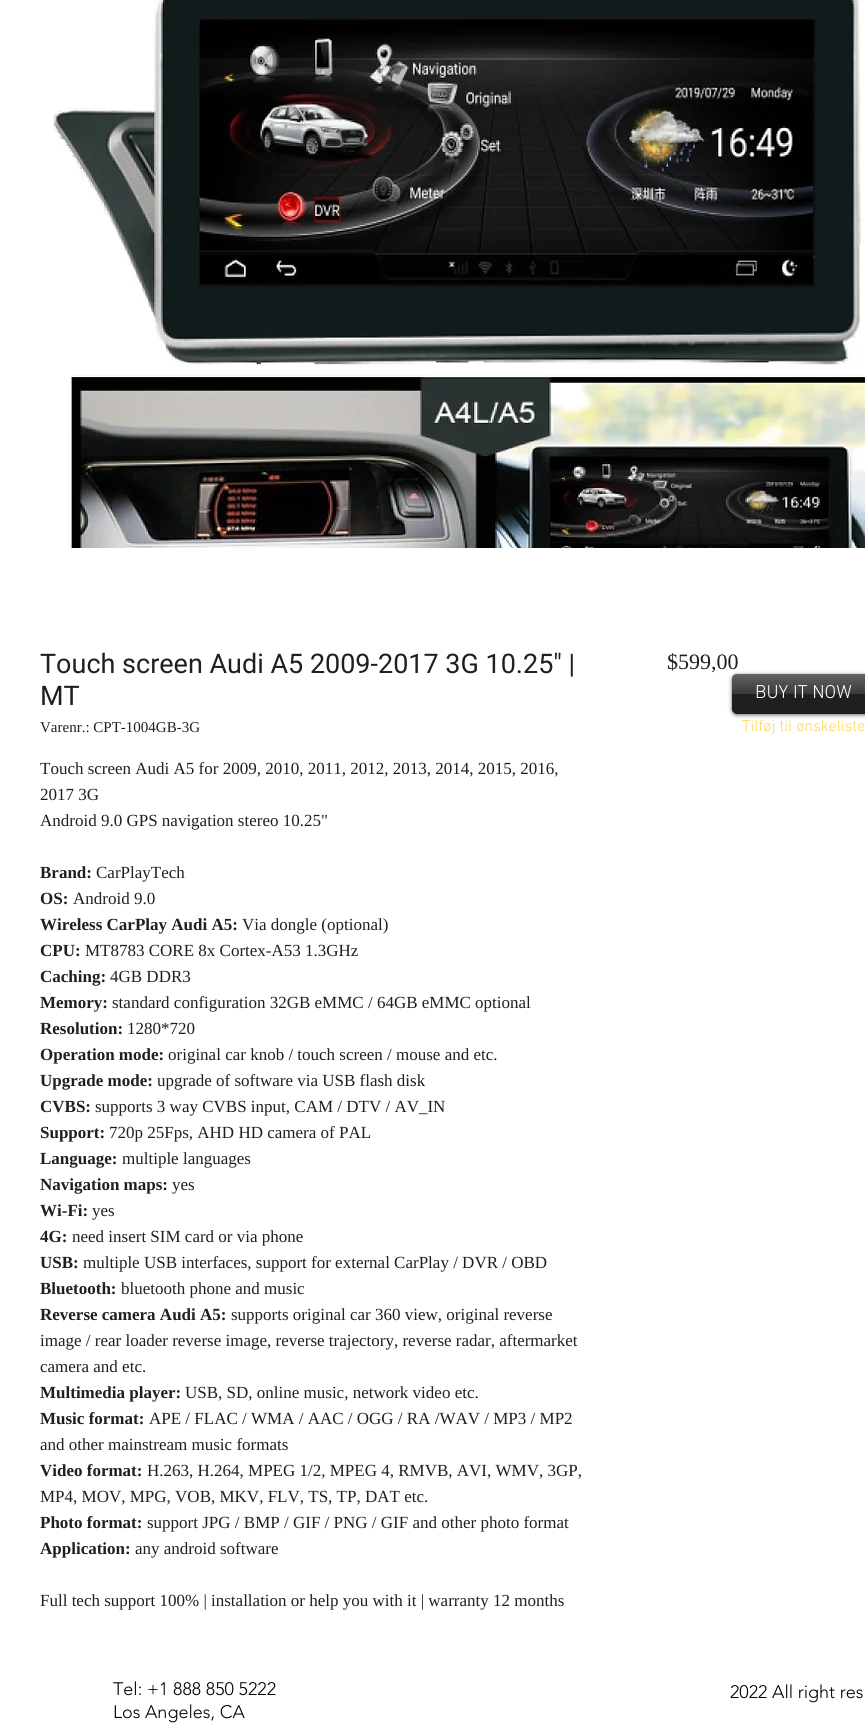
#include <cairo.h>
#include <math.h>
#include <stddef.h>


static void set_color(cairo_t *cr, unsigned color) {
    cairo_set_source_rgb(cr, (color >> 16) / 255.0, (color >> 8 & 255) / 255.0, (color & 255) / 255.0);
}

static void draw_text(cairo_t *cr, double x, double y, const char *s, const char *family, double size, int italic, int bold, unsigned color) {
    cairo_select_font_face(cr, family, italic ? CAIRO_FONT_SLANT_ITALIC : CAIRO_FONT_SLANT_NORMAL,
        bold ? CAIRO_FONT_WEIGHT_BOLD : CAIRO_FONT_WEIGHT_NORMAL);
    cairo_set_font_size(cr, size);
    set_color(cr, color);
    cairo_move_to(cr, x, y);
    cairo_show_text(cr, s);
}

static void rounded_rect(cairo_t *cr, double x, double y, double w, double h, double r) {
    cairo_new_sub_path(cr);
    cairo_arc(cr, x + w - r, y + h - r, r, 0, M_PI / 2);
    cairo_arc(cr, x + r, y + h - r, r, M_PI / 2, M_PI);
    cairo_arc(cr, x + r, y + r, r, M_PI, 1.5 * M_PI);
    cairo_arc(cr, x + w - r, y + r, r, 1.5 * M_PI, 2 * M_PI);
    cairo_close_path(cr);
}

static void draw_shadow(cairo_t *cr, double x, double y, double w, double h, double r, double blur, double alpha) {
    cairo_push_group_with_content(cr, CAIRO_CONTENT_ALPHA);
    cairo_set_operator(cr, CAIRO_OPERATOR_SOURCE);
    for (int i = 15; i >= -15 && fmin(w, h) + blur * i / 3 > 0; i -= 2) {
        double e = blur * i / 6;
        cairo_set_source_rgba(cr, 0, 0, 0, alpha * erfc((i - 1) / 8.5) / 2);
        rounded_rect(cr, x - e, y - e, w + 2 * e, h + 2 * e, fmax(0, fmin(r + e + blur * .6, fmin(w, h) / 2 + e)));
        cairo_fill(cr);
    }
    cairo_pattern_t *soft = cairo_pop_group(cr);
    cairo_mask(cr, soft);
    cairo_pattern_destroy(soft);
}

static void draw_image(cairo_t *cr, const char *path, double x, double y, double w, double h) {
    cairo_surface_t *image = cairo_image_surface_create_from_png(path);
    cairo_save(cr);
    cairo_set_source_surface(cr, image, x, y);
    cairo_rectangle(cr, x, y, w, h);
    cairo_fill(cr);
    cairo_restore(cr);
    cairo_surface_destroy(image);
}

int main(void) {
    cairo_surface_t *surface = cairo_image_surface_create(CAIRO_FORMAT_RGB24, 865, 1734);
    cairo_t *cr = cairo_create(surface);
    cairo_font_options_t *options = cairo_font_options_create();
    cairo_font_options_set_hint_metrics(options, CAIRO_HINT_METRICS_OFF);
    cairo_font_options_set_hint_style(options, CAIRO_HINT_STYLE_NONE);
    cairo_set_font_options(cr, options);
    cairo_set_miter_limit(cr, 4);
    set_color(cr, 0xFFFFFF);
    cairo_paint(cr);
    draw_image(cr, "assets/img1.png", 53, 0, 812, 548);
    draw_text(cr, 40, 673, "Touch screen Audi A5 2009-2017 3G 10.25\" |", "Roboto", 27, 0, 0, 0x1F1F1F);
    draw_text(cr, 40, 705, "MT", "Roboto", 27, 0, 0, 0x1F1F1F);
    draw_text(cr, 40, 732, "Varenr.: CPT-1004GB-3G", "Liberation Serif", 15, 0, 0, 0x1F1F1F);
    draw_text(cr, 40, 774, "Touch screen Audi A5 for 2009, 2010, 2011, 2012, 2013, 2014, 2015, 2016,", "Liberation Serif", 17, 0, 0, 0x1F1F1F);
    draw_text(cr, 40, 800, "2017 3G", "Liberation Serif", 17, 0, 0, 0x1F1F1F);
    draw_text(cr, 40, 826, "Android 9.0 GPS navigation stereo 10.25\"", "Liberation Serif", 17, 0, 0, 0x1F1F1F);
    draw_text(cr, 40, 878, "Brand:", "Liberation Serif", 17, 0, 1, 0x1F1F1F);
    draw_text(cr, 96, 878, "CarPlayTech", "Liberation Serif", 17, 0, 0, 0x1F1F1F);
    draw_text(cr, 40, 904, "OS:", "Liberation Serif", 17, 0, 1, 0x1F1F1F);
    draw_text(cr, 73, 904, "Android 9.0", "Liberation Serif", 17, 0, 0, 0x1F1F1F);
    draw_text(cr, 40, 930, "Wireless CarPlay Audi A5:", "Liberation Serif", 17, 0, 1, 0x1F1F1F);
    draw_text(cr, 242, 930, "Via dongle (optional)", "Liberation Serif", 17, 0, 0, 0x1F1F1F);
    draw_text(cr, 40, 956, "CPU:", "Liberation Serif", 17, 0, 1, 0x1F1F1F);
    draw_text(cr, 85, 956, "MT8783 CORE 8x Cortex-A53 1.3GHz", "Liberation Serif", 17, 0, 0, 0x1F1F1F);
    draw_text(cr, 40, 982, "Caching:", "Liberation Serif", 17, 0, 1, 0x1F1F1F);
    draw_text(cr, 110, 982, "4GB DDR3", "Liberation Serif", 17, 0, 0, 0x1F1F1F);
    draw_text(cr, 40, 1008, "Memory:", "Liberation Serif", 17, 0, 1, 0x1F1F1F);
    draw_text(cr, 112, 1008, "standard configuration 32GB eMMC / 64GB eMMC optional", "Liberation Serif", 17, 0, 0, 0x1F1F1F);
    draw_text(cr, 40, 1034, "Resolution:", "Liberation Serif", 17, 0, 1, 0x1F1F1F);
    draw_text(cr, 127, 1034, "1280*720", "Liberation Serif", 17, 0, 0, 0x1F1F1F);
    draw_text(cr, 40, 1060, "Operation mode:", "Liberation Serif", 17, 0, 1, 0x1F1F1F);
    draw_text(cr, 168, 1060, "original car knob / touch screen / mouse and etc.", "Liberation Serif", 17, 0, 0, 0x1F1F1F);
    draw_text(cr, 40, 1086, "Upgrade mode:", "Liberation Serif", 17, 0, 1, 0x1F1F1F);
    draw_text(cr, 157, 1086, "upgrade of software via USB flash disk", "Liberation Serif", 17, 0, 0, 0x1F1F1F);
    draw_text(cr, 40, 1112, "CVBS:", "Liberation Serif", 17, 0, 1, 0x1F1F1F);
    draw_text(cr, 95, 1112, "supports 3 way CVBS input, CAM / DTV / AV_IN", "Liberation Serif", 17, 0, 0, 0x1F1F1F);
    draw_text(cr, 40, 1138, "Support:", "Liberation Serif", 17, 0, 1, 0x1F1F1F);
    draw_text(cr, 109, 1138, "720p 25Fps, AHD HD camera of PAL", "Liberation Serif", 17, 0, 0, 0x1F1F1F);
    draw_text(cr, 40, 1164, "Language:", "Liberation Serif", 17, 0, 1, 0x1F1F1F);
    draw_text(cr, 122, 1164, "multiple languages", "Liberation Serif", 17, 0, 0, 0x1F1F1F);
    draw_text(cr, 40, 1190, "Navigation maps:", "Liberation Serif", 17, 0, 1, 0x1F1F1F);
    draw_text(cr, 172, 1190, "yes", "Liberation Serif", 17, 0, 0, 0x1F1F1F);
    draw_text(cr, 40, 1216, "Wi-Fi:", "Liberation Serif", 17, 0, 1, 0x1F1F1F);
    draw_text(cr, 92, 1216, "yes", "Liberation Serif", 17, 0, 0, 0x1F1F1F);
    draw_text(cr, 40, 1242, "4G:", "Liberation Serif", 17, 0, 1, 0x1F1F1F);
    draw_text(cr, 72, 1242, "need insert SIM card or via phone", "Liberation Serif", 17, 0, 0, 0x1F1F1F);
    draw_text(cr, 40, 1268, "USB:", "Liberation Serif", 17, 0, 1, 0x1F1F1F);
    draw_text(cr, 83, 1268, "multiple USB interfaces, support for external CarPlay / DVR / OBD", "Liberation Serif", 17, 0, 0, 0x1F1F1F);
    draw_text(cr, 40, 1294, "Bluetooth:", "Liberation Serif", 17, 0, 1, 0x1F1F1F);
    draw_text(cr, 121, 1294, "bluetooth phone and music", "Liberation Serif", 17, 0, 0, 0x1F1F1F);
    draw_text(cr, 40, 1320, "Reverse camera Audi A5:", "Liberation Serif", 17, 0, 1, 0x1F1F1F);
    draw_text(cr, 231, 1320, "supports original car 360 view, original reverse", "Liberation Serif", 17, 0, 0, 0x1F1F1F);
    draw_text(cr, 40, 1346, "image / rear loader reverse image, reverse trajectory, reverse radar, aftermarket", "Liberation Serif", 17, 0, 0, 0x1F1F1F);
    draw_text(cr, 40, 1372, "camera and etc.", "Liberation Serif", 17, 0, 0, 0x1F1F1F);
    draw_text(cr, 40, 1398, "Multimedia player:", "Liberation Serif", 17, 0, 1, 0x1F1F1F);
    draw_text(cr, 185, 1398, "USB, SD, online music, network video etc.", "Liberation Serif", 17, 0, 0, 0x1F1F1F);
    draw_text(cr, 40, 1424, "Music format:", "Liberation Serif", 17, 0, 1, 0x1F1F1F);
    draw_text(cr, 149, 1424, "APE / FLAC / WMA / AAC / OGG / RA /WAV / MP3 / MP2", "Liberation Serif", 17, 0, 0, 0x1F1F1F);
    draw_text(cr, 40, 1450, "and other mainstream music formats", "Liberation Serif", 17, 0, 0, 0x1F1F1F);
    draw_text(cr, 40, 1476, "Video format:", "Liberation Serif", 17, 0, 1, 0x1F1F1F);
    draw_text(cr, 147, 1476, "H.263, H.264, MPEG 1/2, MPEG 4, RMVB, AVI, WMV, 3GP,", "Liberation Serif", 17, 0, 0, 0x1F1F1F);
    draw_text(cr, 40, 1502, "MP4, MOV, MPG, VOB, MKV, FLV, TS, TP, DAT etc.", "Liberation Serif", 17, 0, 0, 0x1F1F1F);
    draw_text(cr, 40, 1528, "Photo format:", "Liberation Serif", 17, 0, 1, 0x1F1F1F);
    draw_text(cr, 147, 1528, "support JPG / BMP / GIF / PNG / GIF and other photo format", "Liberation Serif", 17, 0, 0, 0x1F1F1F);
    draw_text(cr, 40, 1554, "Application:", "Liberation Serif", 17, 0, 1, 0x1F1F1F);
    draw_text(cr, 135, 1554, "any android software", "Liberation Serif", 17, 0, 0, 0x1F1F1F);
    draw_text(cr, 40, 1606, "Full tech support 100% | installation or help you with it | warranty 12 months", "Liberation Serif", 17, 0, 0, 0x1F1F1F);
    draw_text(cr, 667, 669, "$599,00", "Liberation Serif", 22, 0, 0, 0x1F1F1F);
    draw_text(cr, 742, 731, "Tilføj til ønskeliste", "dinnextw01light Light", 16, 0, 0, 0xFFD25A);
    set_color(cr, 0x000000);
    draw_shadow(cr, 732, 675, 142, 40, 5, 2, 0.6);
    set_color(cr, 0x1F1F1F);
    rounded_rect(cr, 732, 674, 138, 40, 5);
    cairo_fill(cr);
    draw_image(cr, "assets/img2.png", 732, 674, 133, 20);
    draw_text(cr, 755, 698, "BUY IT NOW", "dinnextw01light Light", 19, 0, 0, 0xFFFFFF);
    draw_text(cr, 113, 1695, "Tel: +1 888 850 5222", "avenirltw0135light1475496 Light", 18, 0, 0, 0x000000);
    draw_text(cr, 113, 1718, "Los Angeles, CA", "avenirltw0135light1475496 Light", 18, 0, 0, 0x000000);
    draw_text(cr, 730, 1698, "2022 All right res", "avenirltw0135light1475496 Light", 18, 0, 0, 0x000000);
    cairo_surface_write_to_png(surface, "output.png");
    cairo_font_options_destroy(options);
    cairo_destroy(cr);
    cairo_surface_destroy(surface);
    return 0;
}
